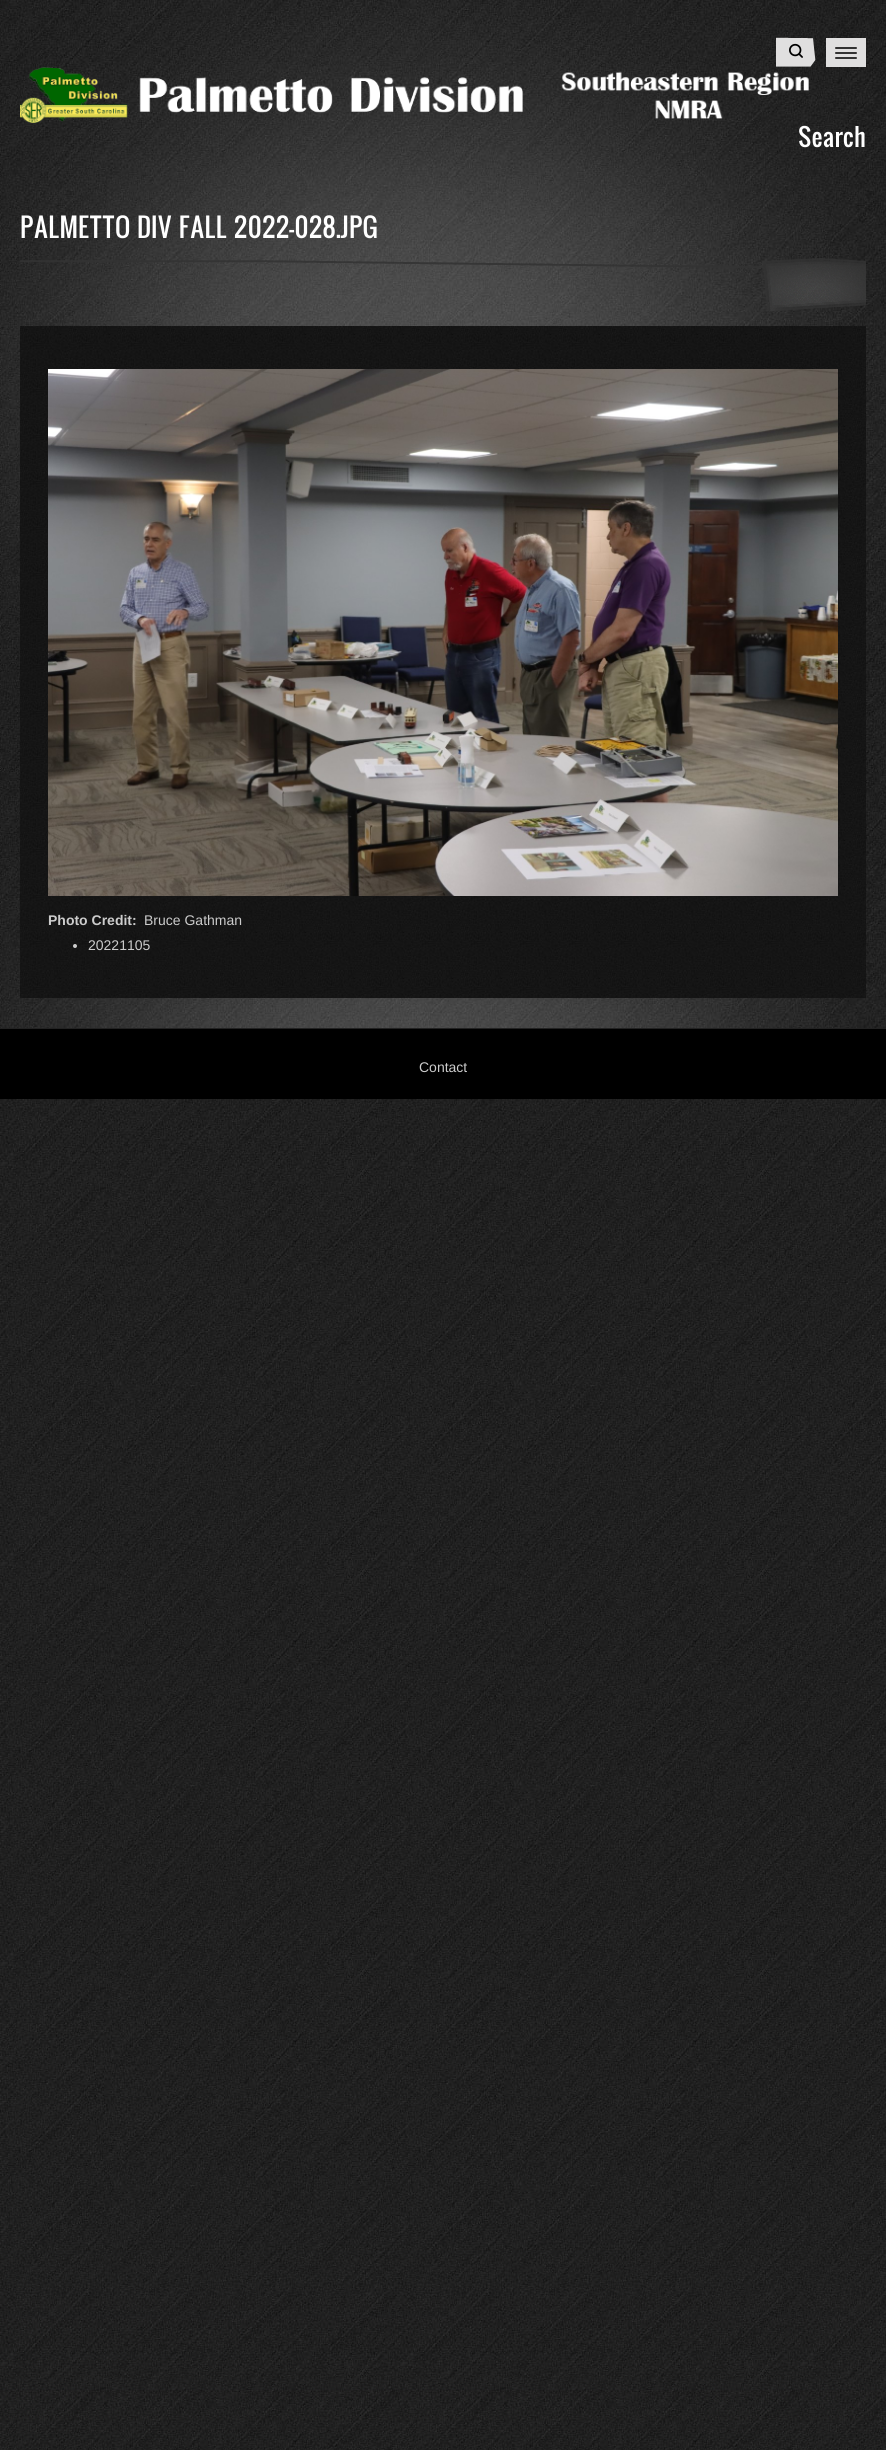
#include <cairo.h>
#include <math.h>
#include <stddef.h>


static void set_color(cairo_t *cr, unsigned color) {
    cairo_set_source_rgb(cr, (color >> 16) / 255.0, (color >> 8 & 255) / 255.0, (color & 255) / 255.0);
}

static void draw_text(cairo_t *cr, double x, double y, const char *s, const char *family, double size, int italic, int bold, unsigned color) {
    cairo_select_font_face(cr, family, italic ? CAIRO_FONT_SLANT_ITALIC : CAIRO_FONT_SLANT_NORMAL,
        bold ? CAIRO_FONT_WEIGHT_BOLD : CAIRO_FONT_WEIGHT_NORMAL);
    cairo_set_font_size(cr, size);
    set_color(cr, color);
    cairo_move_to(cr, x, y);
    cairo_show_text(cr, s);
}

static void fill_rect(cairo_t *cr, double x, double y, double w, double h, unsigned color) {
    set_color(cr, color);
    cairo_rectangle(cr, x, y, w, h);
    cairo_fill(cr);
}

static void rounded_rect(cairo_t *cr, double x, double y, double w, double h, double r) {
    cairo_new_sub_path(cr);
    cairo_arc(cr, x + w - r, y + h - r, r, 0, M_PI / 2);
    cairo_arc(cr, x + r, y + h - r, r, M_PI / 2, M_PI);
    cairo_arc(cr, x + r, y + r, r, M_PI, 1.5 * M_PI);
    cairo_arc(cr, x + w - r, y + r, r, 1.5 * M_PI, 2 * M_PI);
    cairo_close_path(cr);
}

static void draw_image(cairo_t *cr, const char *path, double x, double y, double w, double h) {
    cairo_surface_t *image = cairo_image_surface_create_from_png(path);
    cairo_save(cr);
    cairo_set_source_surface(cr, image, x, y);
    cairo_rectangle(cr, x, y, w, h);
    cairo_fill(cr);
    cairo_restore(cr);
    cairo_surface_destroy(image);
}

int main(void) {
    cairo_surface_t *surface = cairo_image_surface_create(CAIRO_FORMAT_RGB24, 886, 2450);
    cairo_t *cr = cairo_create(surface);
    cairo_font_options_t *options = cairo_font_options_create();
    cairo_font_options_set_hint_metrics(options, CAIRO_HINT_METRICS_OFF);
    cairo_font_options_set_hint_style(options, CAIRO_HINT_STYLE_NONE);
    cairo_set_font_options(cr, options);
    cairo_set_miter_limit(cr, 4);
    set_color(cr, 0xFFFFFF);
    cairo_paint(cr);
    draw_image(cr, "assets/img1.png", 0, 1099, 886, 1351);
    draw_image(cr, "assets/img2.png", 0, 0, 886, 1028);
    fill_rect(cr, 826, 38, 40, 29, 0xE0DFDF);
    set_color(cr, 0x333333);
    rounded_rect(cr, 835, 47, 22, 2, 1);
    cairo_fill(cr);
    rounded_rect(cr, 835, 52, 22, 2, 1);
    cairo_fill(cr);
    rounded_rect(cr, 835, 57, 22, 2, 1);
    cairo_fill(cr);
    draw_image(cr, "assets/img3.png", 20, 67, 789, 56);
    draw_image(cr, "assets/img4.png", 776, 37, 40, 30);
    draw_image(cr, "assets/img5.png", 789, 43, 14, 15);
    draw_text(cr, 798, 147, "Search", "Oswald", 24, 0, 0, 0xFFFFFF);
    draw_text(cr, 20, 238, "PALMETTO DIV FALL 2022-028.JPG", "Oswald", 25.75, 0, 0, 0xFFFFFF);
    draw_image(cr, "assets/img6.png", 20, 258, 846, 53);
    draw_image(cr, "assets/img7.png", 20, 326, 846, 672);
    draw_image(cr, "assets/img8.png", 48, 369, 790, 527);
    draw_text(cr, 48, 925, "Photo Credit:", "Liberation Sans", 14, 0, 1, 0xCCCCCC);
    draw_text(cr, 144, 925, "Bruce Gathman", "Liberation Sans", 14, 0, 0, 0xCCCCCC);
    cairo_new_path(cr);
    cairo_arc(cr, 75, 946, 2, 0, 2 * M_PI);
    cairo_fill(cr);
    draw_text(cr, 88, 950, "20221105", "Liberation Sans", 14, 0, 0, 0xCCCCCC);
    fill_rect(cr, 0, 1029, 886, 70, 0x000000);
    fill_rect(cr, 0, 1028, 886, 1, 0x222222);
    draw_text(cr, 419, 1072, "Contact", "Liberation Sans", 14, 0, 0, 0xCCCCCC);
    cairo_surface_write_to_png(surface, "output.png");
    cairo_font_options_destroy(options);
    cairo_destroy(cr);
    cairo_surface_destroy(surface);
    return 0;
}
